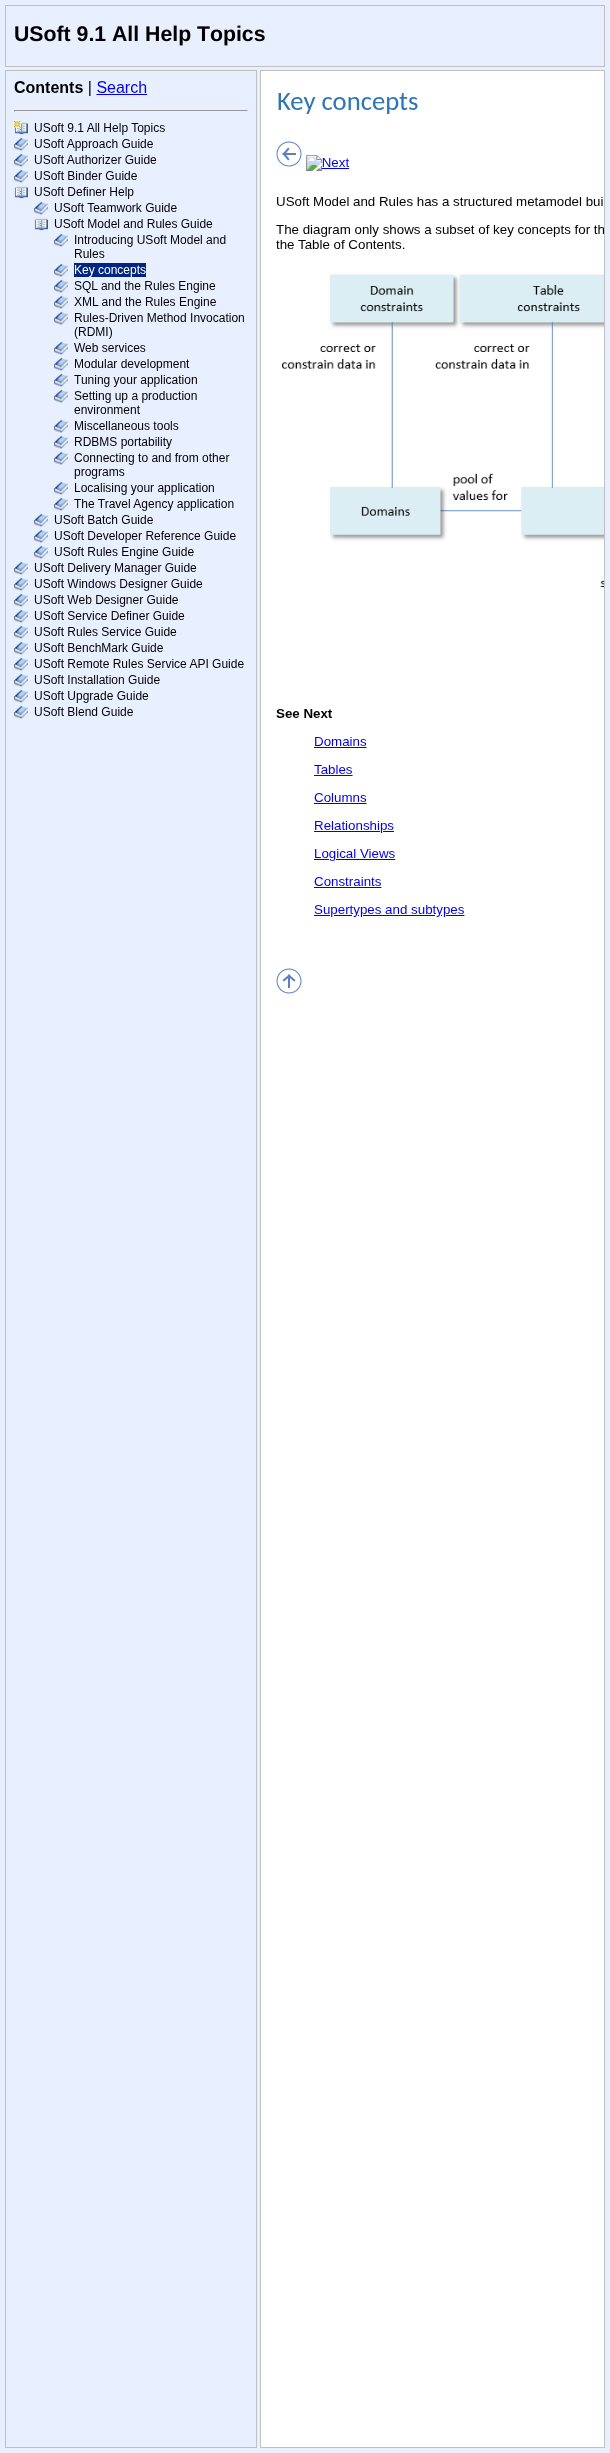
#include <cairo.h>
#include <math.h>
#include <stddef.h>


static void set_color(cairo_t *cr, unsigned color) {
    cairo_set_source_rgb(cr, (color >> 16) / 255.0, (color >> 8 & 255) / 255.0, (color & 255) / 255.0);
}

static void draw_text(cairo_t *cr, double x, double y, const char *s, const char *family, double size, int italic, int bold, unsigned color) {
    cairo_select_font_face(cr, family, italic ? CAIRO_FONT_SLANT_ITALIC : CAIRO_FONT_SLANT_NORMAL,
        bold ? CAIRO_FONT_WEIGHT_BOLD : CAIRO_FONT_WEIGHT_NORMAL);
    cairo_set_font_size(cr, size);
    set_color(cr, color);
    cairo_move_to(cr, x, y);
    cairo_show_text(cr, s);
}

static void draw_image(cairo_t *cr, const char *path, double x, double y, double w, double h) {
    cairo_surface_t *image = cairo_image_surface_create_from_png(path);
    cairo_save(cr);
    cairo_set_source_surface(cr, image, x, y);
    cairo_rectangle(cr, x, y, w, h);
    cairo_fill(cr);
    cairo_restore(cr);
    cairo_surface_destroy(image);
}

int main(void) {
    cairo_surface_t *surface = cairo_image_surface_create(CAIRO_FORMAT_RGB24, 610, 2453);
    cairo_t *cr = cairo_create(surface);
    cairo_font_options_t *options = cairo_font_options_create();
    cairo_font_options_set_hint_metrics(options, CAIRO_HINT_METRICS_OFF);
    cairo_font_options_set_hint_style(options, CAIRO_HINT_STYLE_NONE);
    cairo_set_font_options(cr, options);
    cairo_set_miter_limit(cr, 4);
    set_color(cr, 0xE8F0FF);
    cairo_paint(cr);
    cairo_rectangle(cr, 5.5, 5.5, 599, 61);
    set_color(cr, 0xC0C0C0);
    cairo_set_line_width(cr, 1);
    cairo_stroke(cr);
    draw_text(cr, 14, 41, "USoft 9.1 All Help Topics", "Liberation Sans", 21.25, 0, 1, 0x000000);
    cairo_rectangle(cr, 5.5, 70.5, 251, 2377);
    set_color(cr, 0xC0C0C0);
    cairo_stroke(cr);
    draw_image(cr, "assets/img1.png", 14, 81, 234, 638);
    cairo_rectangle(cr, 260.5, 70.5, 344, 2377);
    cairo_stroke(cr);
    draw_image(cr, "assets/img2.png", 261, 71, 343, 2376);
    cairo_surface_write_to_png(surface, "output.png");
    cairo_font_options_destroy(options);
    cairo_destroy(cr);
    cairo_surface_destroy(surface);
    return 0;
}
